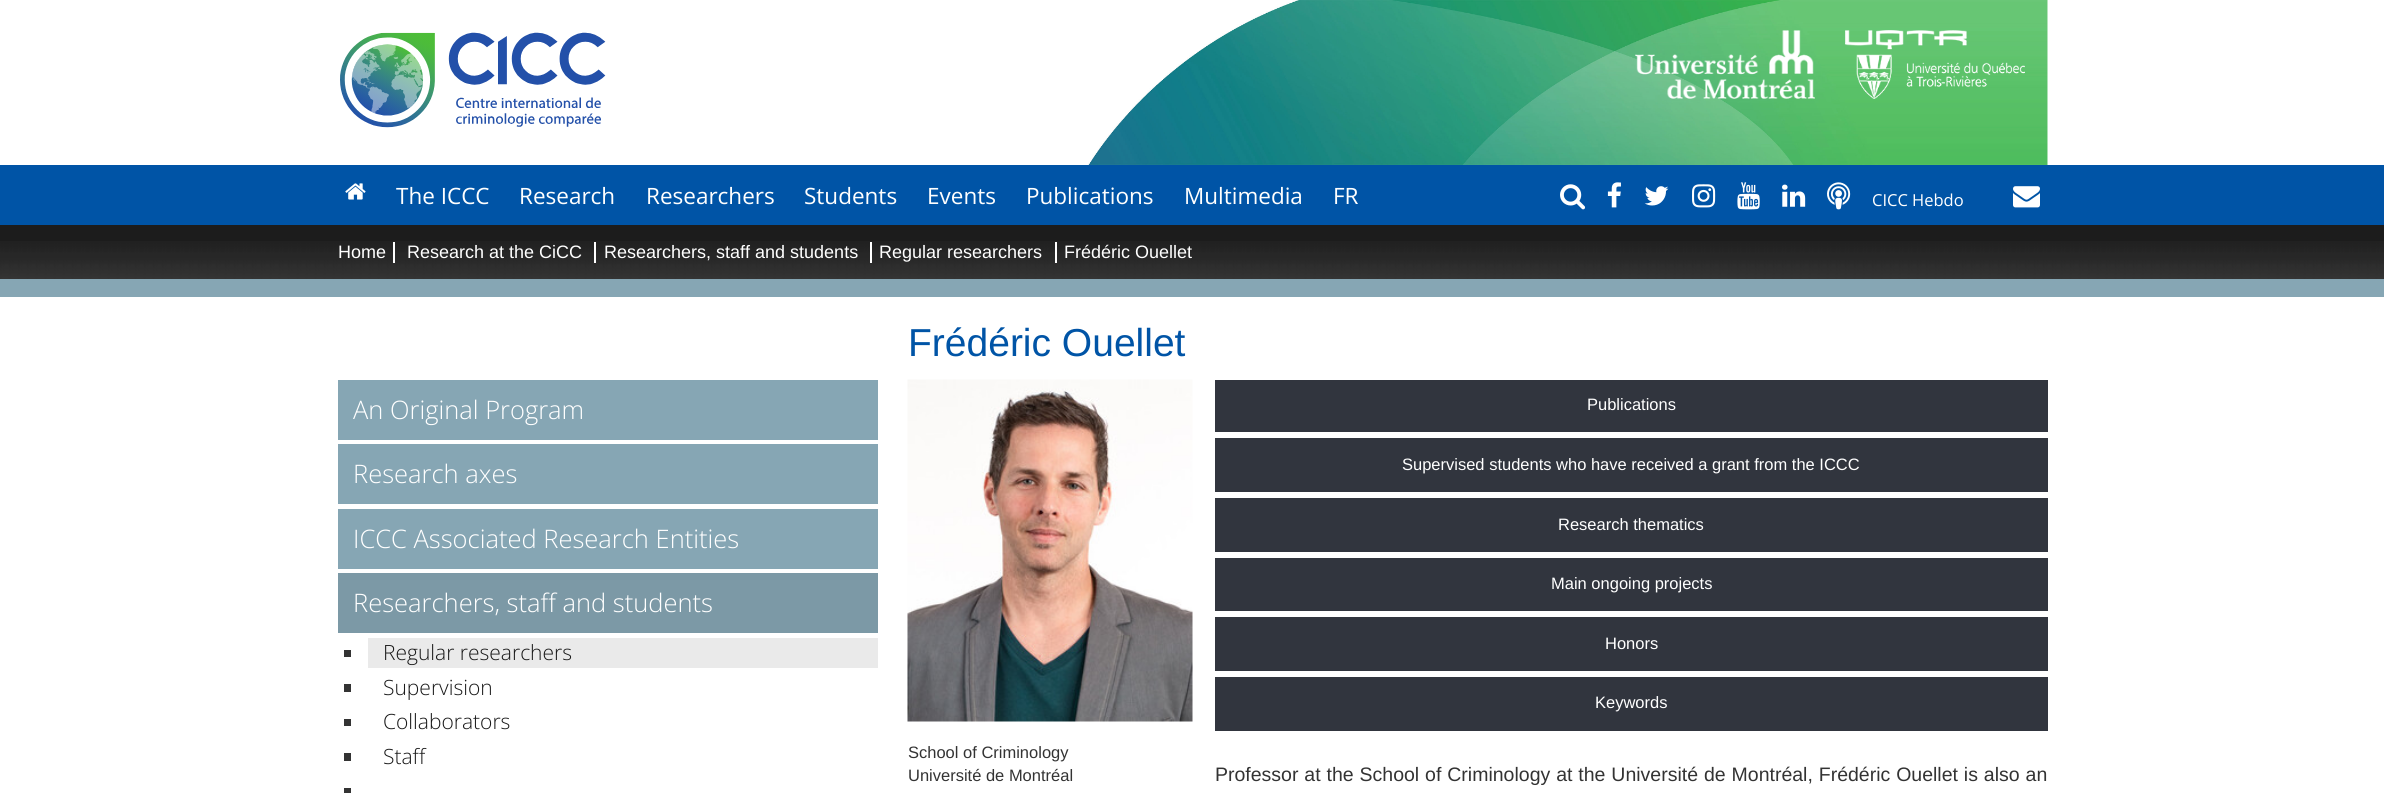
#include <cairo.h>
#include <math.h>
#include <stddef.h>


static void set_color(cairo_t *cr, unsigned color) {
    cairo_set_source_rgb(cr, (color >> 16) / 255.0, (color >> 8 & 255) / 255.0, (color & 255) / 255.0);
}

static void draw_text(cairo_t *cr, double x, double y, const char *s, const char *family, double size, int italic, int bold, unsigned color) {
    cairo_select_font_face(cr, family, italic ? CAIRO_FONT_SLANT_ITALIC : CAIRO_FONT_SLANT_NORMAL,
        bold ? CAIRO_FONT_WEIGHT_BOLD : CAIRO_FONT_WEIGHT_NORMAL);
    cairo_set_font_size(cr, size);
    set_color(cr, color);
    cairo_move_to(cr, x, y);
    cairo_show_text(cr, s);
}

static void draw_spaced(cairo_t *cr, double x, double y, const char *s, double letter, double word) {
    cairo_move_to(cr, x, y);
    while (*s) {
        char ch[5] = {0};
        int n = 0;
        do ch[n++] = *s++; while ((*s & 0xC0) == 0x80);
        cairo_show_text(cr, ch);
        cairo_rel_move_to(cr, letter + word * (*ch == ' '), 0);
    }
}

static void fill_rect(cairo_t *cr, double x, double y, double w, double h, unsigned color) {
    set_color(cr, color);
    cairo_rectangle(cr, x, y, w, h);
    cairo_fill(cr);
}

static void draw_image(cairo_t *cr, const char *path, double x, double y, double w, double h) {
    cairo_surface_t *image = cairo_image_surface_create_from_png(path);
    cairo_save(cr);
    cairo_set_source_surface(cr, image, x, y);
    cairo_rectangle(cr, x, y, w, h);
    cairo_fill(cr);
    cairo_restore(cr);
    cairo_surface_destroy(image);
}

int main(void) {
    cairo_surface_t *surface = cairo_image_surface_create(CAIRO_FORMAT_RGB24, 2384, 793);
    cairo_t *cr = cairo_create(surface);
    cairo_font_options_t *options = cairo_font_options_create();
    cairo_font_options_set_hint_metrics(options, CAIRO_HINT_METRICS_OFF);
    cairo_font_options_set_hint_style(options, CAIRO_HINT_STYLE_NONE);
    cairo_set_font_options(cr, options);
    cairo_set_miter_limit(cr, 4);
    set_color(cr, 0xFFFFFF);
    cairo_paint(cr);
    draw_image(cr, "assets/img1.png", 1088, 0, 960, 165);
    draw_image(cr, "assets/img2.png", 340, 32, 266, 96);
    draw_image(cr, "assets/img3.png", 1635, 30, 180, 69);
    draw_image(cr, "assets/img4.png", 1845, 30, 180, 69);
    fill_rect(cr, 0, 165, 2384, 60, 0x0054A6);
    draw_image(cr, "assets/img5.png", 345, 183, 21, 17);
    draw_text(cr, 396, 204, "The ICCC", "Open Sans", 22.5, 0, 0, 0xFFFFFF);
    draw_text(cr, 519, 204, "Research", "Open Sans", 22.5, 0, 0, 0xFFFFFF);
    draw_text(cr, 646, 204, "Researchers", "Open Sans", 22.5, 0, 0, 0xFFFFFF);
    draw_text(cr, 804, 204, "Students", "Open Sans", 22.5, 0, 0, 0xFFFFFF);
    draw_text(cr, 927, 204, "Events", "Open Sans", 22.5, 0, 0, 0xFFFFFF);
    draw_text(cr, 1026, 204, "Publications", "Open Sans", 22.5, 0, 0, 0xFFFFFF);
    draw_text(cr, 1184, 204, "Multimedia", "Open Sans", 22.5, 0, 0, 0xFFFFFF);
    draw_text(cr, 1333, 204, "FR", "Open Sans", 22.5, 0, 0, 0xFFFFFF);
    draw_image(cr, "assets/img6.png", 1560, 184, 26, 26);
    draw_image(cr, "assets/img7.png", 1607, 182, 14, 26);
    draw_image(cr, "assets/img8.png", 1644, 186, 25, 20);
    draw_image(cr, "assets/img9.png", 1692, 184, 24, 24);
    draw_image(cr, "assets/img10.png", 1737, 182, 23, 28);
    draw_image(cr, "assets/img11.png", 1782, 184, 24, 23);
    draw_image(cr, "assets/img12.png", 1827, 182, 24, 28);
    draw_text(cr, 1872, 206, "CICC Hebdo", "Open Sans", 16.5, 0, 0, 0xFFFFFF);
    draw_image(cr, "assets/img13.png", 2013, 186, 27, 22);
    fill_rect(cr, 0, 225, 2384, 16, 0x1C1C1C);
    draw_image(cr, "assets/img14.png", 0, 241, 2384, 38);
    draw_text(cr, 338, 258, "Home", "Liberation Sans", 18, 0, 0, 0xFFFFFF);
    fill_rect(cr, 393, 242, 2, 21, 0xFFFFFF);
    draw_text(cr, 407, 258, "Research at the CiCC", "Liberation Sans", 18, 0, 0, 0xFFFFFF);
    fill_rect(cr, 594, 242, 2, 21, 0xFFFFFF);
    draw_text(cr, 604, 258, "Researchers, staff and students", "Liberation Sans", 18, 0, 0, 0xFFFFFF);
    fill_rect(cr, 870, 242, 2, 21, 0xFFFFFF);
    draw_text(cr, 879, 258, "Regular researchers", "Liberation Sans", 18, 0, 0, 0xFFFFFF);
    fill_rect(cr, 1055, 242, 2, 21, 0xFFFFFF);
    draw_text(cr, 1064, 258, "Frédéric Ouellet", "Liberation Sans", 18, 0, 0, 0xFFFFFF);
    fill_rect(cr, 0, 279, 2384, 18, 0x86A6B4);
    fill_rect(cr, 338, 380, 540, 60, 0x86A6B4);
    draw_text(cr, 353, 419, "An Original Program", "Open Sans Light", 25.5, 0, 0, 0xFFFFFF);
    fill_rect(cr, 338, 444, 540, 60, 0x86A6B4);
    draw_text(cr, 353, 483, "Research axes", "Open Sans Light", 25.5, 0, 0, 0xFFFFFF);
    fill_rect(cr, 338, 509, 540, 60, 0x86A6B4);
    draw_text(cr, 353, 548, "ICCC Associated Research Entities", "Open Sans Light", 25.5, 0, 0, 0xFFFFFF);
    fill_rect(cr, 338, 573, 540, 60, 0x7C99A6);
    draw_text(cr, 353, 612, "Researchers, staff and students", "Open Sans Light", 25.5, 0, 0, 0xFFFFFF);
    fill_rect(cr, 344, 650, 7, 7, 0x333333);
    fill_rect(cr, 368, 638, 510, 30, 0xEAEAEA);
    draw_text(cr, 383, 660, "Regular researchers", "Open Sans Light", 21, 0, 0, 0x191919);
    fill_rect(cr, 344, 684, 7, 8, 0x333333);
    draw_text(cr, 383, 695, "Supervision", "Open Sans Light", 21, 0, 0, 0x191919);
    fill_rect(cr, 344, 719, 7, 7, 0x333333);
    draw_text(cr, 383, 729, "Collaborators", "Open Sans Light", 21, 0, 0, 0x191919);
    fill_rect(cr, 344, 753, 7, 8, 0x333333);
    draw_text(cr, 383, 764, "Staff", "Open Sans Light", 21, 0, 0, 0x191919);
    fill_rect(cr, 344, 788, 7, 5, 0x333333);
    draw_text(cr, 908, 356, "Frédéric Ouellet", "Liberation Sans", 39, 0, 0, 0x0054A6);
    draw_image(cr, "assets/img15.png", 907, 379, 286, 343);
    draw_text(cr, 908, 758, "School of Criminology", "Liberation Sans", 16.5, 0, 0, 0x333333);
    draw_text(cr, 908, 781, "Université de Montréal", "Liberation Sans", 16.5, 0, 0, 0x333333);
    fill_rect(cr, 1215, 380, 833, 52, 0x31353E);
    draw_text(cr, 1587, 410, "Publications", "Liberation Sans", 16.5, 0, 0, 0xFFFFFF);
    fill_rect(cr, 1215, 438, 833, 54, 0x31353E);
    draw_text(cr, 1402, 470, "Supervised students who have received a grant from the ICCC", "Liberation Sans", 16.5, 0, 0, 0xFFFFFF);
    fill_rect(cr, 1215, 498, 833, 54, 0x31353E);
    draw_text(cr, 1558, 530, "Research thematics", "Liberation Sans", 16.5, 0, 0, 0xFFFFFF);
    fill_rect(cr, 1215, 558, 833, 53, 0x31353E);
    draw_text(cr, 1551, 589, "Main ongoing projects", "Liberation Sans", 16.5, 0, 0, 0xFFFFFF);
    fill_rect(cr, 1215, 617, 833, 54, 0x31353E);
    draw_text(cr, 1605, 649, "Honors", "Liberation Sans", 16.5, 0, 0, 0xFFFFFF);
    fill_rect(cr, 1215, 677, 833, 54, 0x31353E);
    draw_text(cr, 1595, 708, "Keywords", "Liberation Sans", 16.5, 0, 0, 0xFFFFFF);
    cairo_set_font_size(cr, 19.5);
    set_color(cr, 0x333333);
    draw_spaced(cr, 1215, 781, "Professor at the School of Criminology at the Université de Montréal, Frédéric Ouellet is also an", 0, 0.5);
    cairo_surface_write_to_png(surface, "output.png");
    cairo_font_options_destroy(options);
    cairo_destroy(cr);
    cairo_surface_destroy(surface);
    return 0;
}
